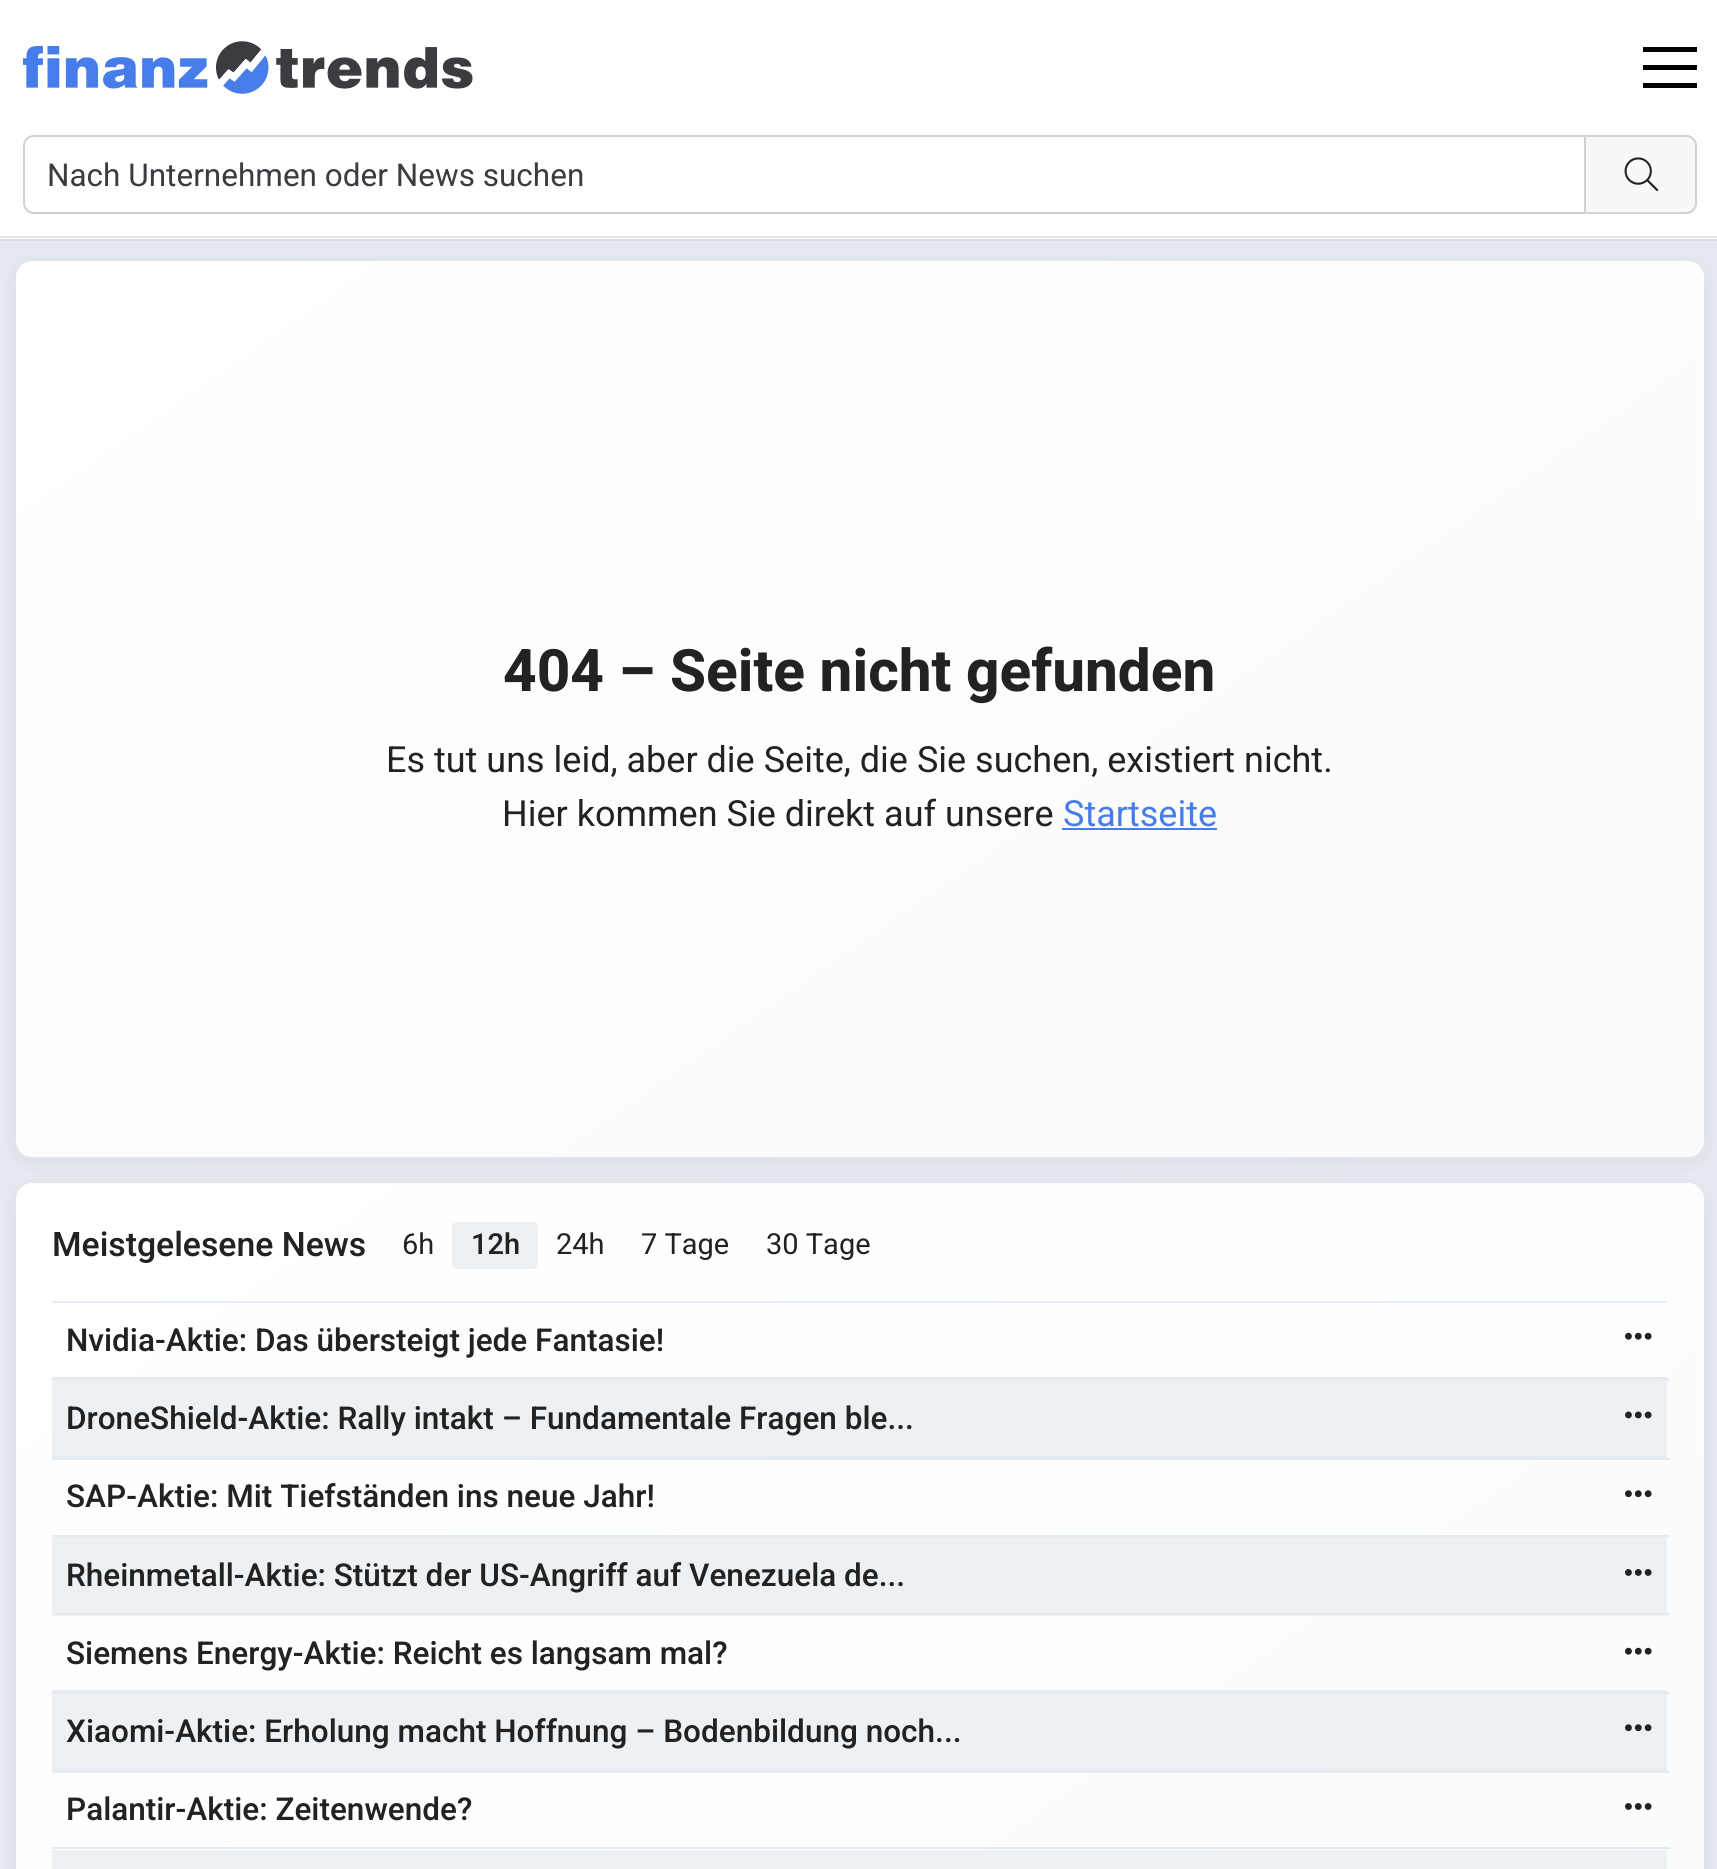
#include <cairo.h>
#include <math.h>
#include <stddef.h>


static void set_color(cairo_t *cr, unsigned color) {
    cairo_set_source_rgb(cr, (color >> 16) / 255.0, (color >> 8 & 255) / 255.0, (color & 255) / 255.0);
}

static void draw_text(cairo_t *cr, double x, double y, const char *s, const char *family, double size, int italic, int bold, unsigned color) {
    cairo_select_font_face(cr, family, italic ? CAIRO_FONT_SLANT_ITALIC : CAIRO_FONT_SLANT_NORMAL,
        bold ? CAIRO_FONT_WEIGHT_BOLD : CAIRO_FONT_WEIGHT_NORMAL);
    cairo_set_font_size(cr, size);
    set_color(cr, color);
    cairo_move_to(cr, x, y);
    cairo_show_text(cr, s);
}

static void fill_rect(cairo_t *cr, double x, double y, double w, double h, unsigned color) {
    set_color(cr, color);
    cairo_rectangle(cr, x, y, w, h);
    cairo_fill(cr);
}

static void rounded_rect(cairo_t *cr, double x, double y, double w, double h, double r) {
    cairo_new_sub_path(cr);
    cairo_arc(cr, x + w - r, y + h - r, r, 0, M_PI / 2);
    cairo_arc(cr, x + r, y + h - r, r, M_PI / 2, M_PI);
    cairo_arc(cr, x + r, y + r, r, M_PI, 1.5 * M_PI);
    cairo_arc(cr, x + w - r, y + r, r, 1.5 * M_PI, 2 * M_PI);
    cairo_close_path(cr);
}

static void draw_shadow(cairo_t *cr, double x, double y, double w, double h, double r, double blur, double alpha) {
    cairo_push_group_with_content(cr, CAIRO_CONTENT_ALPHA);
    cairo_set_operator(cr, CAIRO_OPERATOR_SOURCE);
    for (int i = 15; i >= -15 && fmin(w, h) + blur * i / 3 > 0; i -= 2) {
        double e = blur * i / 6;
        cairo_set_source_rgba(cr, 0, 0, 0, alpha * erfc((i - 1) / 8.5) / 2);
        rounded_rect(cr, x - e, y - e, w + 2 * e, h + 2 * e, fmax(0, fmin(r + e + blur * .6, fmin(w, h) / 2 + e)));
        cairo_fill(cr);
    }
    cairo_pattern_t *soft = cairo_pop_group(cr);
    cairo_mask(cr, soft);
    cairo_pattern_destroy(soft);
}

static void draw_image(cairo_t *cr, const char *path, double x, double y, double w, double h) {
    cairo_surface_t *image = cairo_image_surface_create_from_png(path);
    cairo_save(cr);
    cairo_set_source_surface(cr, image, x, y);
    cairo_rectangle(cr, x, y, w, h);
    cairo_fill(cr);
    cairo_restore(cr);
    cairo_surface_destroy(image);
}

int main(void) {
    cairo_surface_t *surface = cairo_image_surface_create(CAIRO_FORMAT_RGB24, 1717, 1869);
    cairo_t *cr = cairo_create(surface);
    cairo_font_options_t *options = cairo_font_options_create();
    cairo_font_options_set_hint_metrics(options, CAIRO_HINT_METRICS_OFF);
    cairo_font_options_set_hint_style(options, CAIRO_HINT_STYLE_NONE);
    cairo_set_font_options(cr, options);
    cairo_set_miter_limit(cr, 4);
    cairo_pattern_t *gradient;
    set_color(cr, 0xE4E9EF);
    cairo_paint(cr);
    fill_rect(cr, 0, 239, 1717, 2, 0xDADCE0);
    fill_rect(cr, 0, 0, 1717, 239, 0xFFFFFF);
    fill_rect(cr, 0, 236, 1717, 2, 0xE6E6E6);
    draw_image(cr, "assets/img1.png", 23, 41, 450, 53);
    fill_rect(cr, 1643, 47, 54, 5, 0x000000);
    fill_rect(cr, 1643, 65, 54, 5, 0x000000);
    fill_rect(cr, 1643, 83, 54, 5, 0x000000);
    rounded_rect(cr, 24, 136, 1672, 77, 10);
    set_color(cr, 0xD1D1D1);
    cairo_stroke(cr);
    draw_text(cr, 47, 186, "Nach Unternehmen oder News suchen", "Heebo", 31.5, 0, 0, 0x393C40);
    set_color(cr, 0xF8F8F8);
    cairo_new_path(cr);
    cairo_move_to(cr, 1585, 136);
    cairo_line_to(cr, 1686, 136);
    cairo_curve_to(cr, 1691.5, 136, 1696, 140.5, 1696, 146);
    cairo_line_to(cr, 1696, 203);
    cairo_curve_to(cr, 1696, 208.5, 1691.5, 213, 1686, 213);
    cairo_line_to(cr, 1585, 213);
    cairo_close_path(cr);
    cairo_fill_preserve(cr);
    set_color(cr, 0xD3D3D3);
    cairo_stroke(cr);
    draw_image(cr, "assets/img2.png", 1624, 157, 35, 35);
    set_color(cr, 0x000000);
    draw_shadow(cr, 14, 263, 1692, 900, 18, 7, 0.05);
    cairo_save(cr);
    rounded_rect(cr, 14, 259, 1692, 900, 18);
    cairo_clip(cr);
    gradient = cairo_pattern_create_linear(372, 12, 1347, 1406);
    cairo_pattern_add_color_stop_rgba(gradient, 0, 1, 1, 1, 1);
    cairo_pattern_add_color_stop_rgba(gradient, 1, 0.98, 0.984, 0.988, 1);
    cairo_set_source(cr, gradient);
    cairo_pattern_destroy(gradient);
    cairo_rectangle(cr, 16, 261, 1687, 896);
    cairo_fill(cr);
    gradient = cairo_pattern_create_linear(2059, 12, 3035, 1406);
    cairo_pattern_add_color_stop_rgba(gradient, 0, 1, 1, 1, 1);
    cairo_pattern_add_color_stop_rgba(gradient, 1, 0.98, 0.984, 0.988, 1);
    cairo_set_source(cr, gradient);
    cairo_pattern_destroy(gradient);
    cairo_rectangle(cr, 1703, 261, 3, 896);
    cairo_fill(cr);
    cairo_restore(cr);
    rounded_rect(cr, 15, 260, 1690, 898, 17);
    set_color(cr, 0xE1E5E9);
    cairo_stroke(cr);
    draw_text(cr, 503, 691, "404 – Seite nicht gefunden", "Heebo", 58.5, 0, 1, 0x222222);
    draw_text(cr, 386, 772, "Es tut uns leid, aber die Seite, die Sie suchen, existiert nicht.", "Heebo", 36, 0, 0, 0x222222);
    draw_text(cr, 502, 826, "Hier kommen Sie direkt auf unsere", "Heebo", 36, 0, 0, 0x222222);
    draw_text(cr, 1063, 826, "Startseite", "Heebo", 36, 0, 0, 0x477DEA);
    fill_rect(cr, 1062, 828, 155, 2, 0x477DEA);
    set_color(cr, 0x000000);
    draw_shadow(cr, 14, 1186, 1692, 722, 18, 7, 0.05);
    cairo_save(cr);
    rounded_rect(cr, 14, 1181, 1692, 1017, 18);
    cairo_clip(cr);
    gradient = cairo_pattern_create_linear(344, -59, 1375, 1413);
    cairo_pattern_add_color_stop_rgba(gradient, 0, 1, 1, 1, 1);
    cairo_pattern_add_color_stop_rgba(gradient, 1, 0.98, 0.984, 0.988, 1);
    cairo_set_source(cr, gradient);
    cairo_pattern_destroy(gradient);
    cairo_rectangle(cr, 16, 1181, 1687, 3);
    cairo_fill(cr);
    gradient = cairo_pattern_create_linear(344, 954, 1375, 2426);
    cairo_pattern_add_color_stop_rgba(gradient, 0, 1, 1, 1, 1);
    cairo_pattern_add_color_stop_rgba(gradient, 1, 0.98, 0.984, 0.988, 1);
    cairo_set_source(cr, gradient);
    cairo_pattern_destroy(gradient);
    cairo_rectangle(cr, 16, 1184, 1687, 685);
    cairo_fill(cr);
    gradient = cairo_pattern_create_linear(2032, 954, 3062, 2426);
    cairo_pattern_add_color_stop_rgba(gradient, 0, 1, 1, 1, 1);
    cairo_pattern_add_color_stop_rgba(gradient, 1, 0.98, 0.984, 0.988, 1);
    cairo_set_source(cr, gradient);
    cairo_pattern_destroy(gradient);
    cairo_rectangle(cr, 1703, 1184, 3, 685);
    cairo_fill(cr);
    cairo_restore(cr);
    rounded_rect(cr, 15, 1182, 1690, 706, 17);
    set_color(cr, 0xE1E5E9);
    cairo_stroke(cr);
    fill_rect(cr, 52, 1301, 1615, 2, 0xE6EAF3);
    draw_text(cr, 52, 1256, "Meistgelesene News", "Heebo Medium", 33.75, 0, 0, 0x222222);
    draw_text(cr, 402, 1254, "6h", "Heebo", 29, 0, 0, 0x222222);
    set_color(cr, 0xEDF1F3);
    rounded_rect(cr, 452, 1222, 86, 47, 5);
    cairo_fill(cr);
    draw_text(cr, 471, 1254, "12h", "Heebo Medium", 29, 0, 0, 0x222222);
    draw_text(cr, 556, 1254, "24h", "Heebo", 29, 0, 0, 0x222222);
    draw_text(cr, 641, 1254, "7 Tage", "Heebo", 29, 0, 0, 0x222222);
    draw_text(cr, 766, 1254, "30 Tage", "Heebo", 29, 0, 0, 0x222222);
    fill_rect(cr, 52, 1377, 1615, 2, 0xE6EAF3);
    fill_rect(cr, 52, 1379, 1618, 2, 0xE6EAF3);
    draw_text(cr, 66, 1351, "Nvidia-Aktie: Das übersteigt jede Fantasie!", "Heebo Medium", 31.5, 0, 0, 0x222222);
    draw_image(cr, "assets/img3.png", 1625, 1332, 27, 8);
    fill_rect(cr, 52, 1381, 1615, 75, 0xEDF1F3);
    fill_rect(cr, 52, 1456, 1615, 2, 0xE6EAF3);
    fill_rect(cr, 52, 1458, 1618, 2, 0xE6EAF3);
    draw_text(cr, 66, 1429, "DroneShield-Aktie: Rally intakt – Fundamentale Fragen ble...", "Heebo Medium", 31.5, 0, 0, 0x222222);
    draw_image(cr, "assets/img4.png", 1625, 1411, 27, 8);
    fill_rect(cr, 52, 1535, 1618, 2, 0xE6EAF3);
    draw_text(cr, 66, 1507, "SAP-Aktie: Mit Tiefständen ins neue Jahr!", "Heebo Medium", 31.5, 0, 0, 0x222222);
    draw_image(cr, "assets/img5.png", 1625, 1490, 27, 8);
    fill_rect(cr, 52, 1537, 1615, 79, 0xEDF1F3);
    fill_rect(cr, 52, 1613, 1618, 2, 0xE6EAF3);
    draw_text(cr, 66, 1586, "Rheinmetall-Aktie: Stützt der US-Angriff auf Venezuela de...", "Heebo Medium", 31.5, 0, 0, 0x222222);
    draw_image(cr, "assets/img6.png", 1625, 1569, 27, 7);
    fill_rect(cr, 52, 1690, 1615, 2, 0xE6EAF3);
    fill_rect(cr, 52, 1692, 1618, 2, 0xE6EAF3);
    draw_text(cr, 66, 1664, "Siemens Energy-Aktie: Reicht es langsam mal?", "Heebo Medium", 31.5, 0, 0, 0x222222);
    draw_image(cr, "assets/img7.png", 1625, 1647, 27, 8);
    fill_rect(cr, 52, 1694, 1615, 75, 0xEDF1F3);
    fill_rect(cr, 52, 1769, 1615, 2, 0xE6EAF3);
    fill_rect(cr, 52, 1771, 1618, 2, 0xE6EAF3);
    draw_text(cr, 66, 1742, "Xiaomi-Aktie: Erholung macht Hoffnung – Bodenbildung noch...", "Heebo Medium", 31.5, 0, 0, 0x222222);
    draw_image(cr, "assets/img8.png", 1625, 1724, 27, 8);
    fill_rect(cr, 52, 1847, 1618, 2, 0xE6EAF3);
    draw_text(cr, 66, 1820, "Palantir-Aktie: Zeitenwende?", "Heebo Medium", 31.5, 0, 0, 0x222222);
    draw_image(cr, "assets/img9.png", 1625, 1803, 27, 7);
    fill_rect(cr, 52, 1850, 1615, 19, 0xEDF1F3);
    cairo_surface_write_to_png(surface, "output.png");
    cairo_font_options_destroy(options);
    cairo_destroy(cr);
    cairo_surface_destroy(surface);
    return 0;
}
